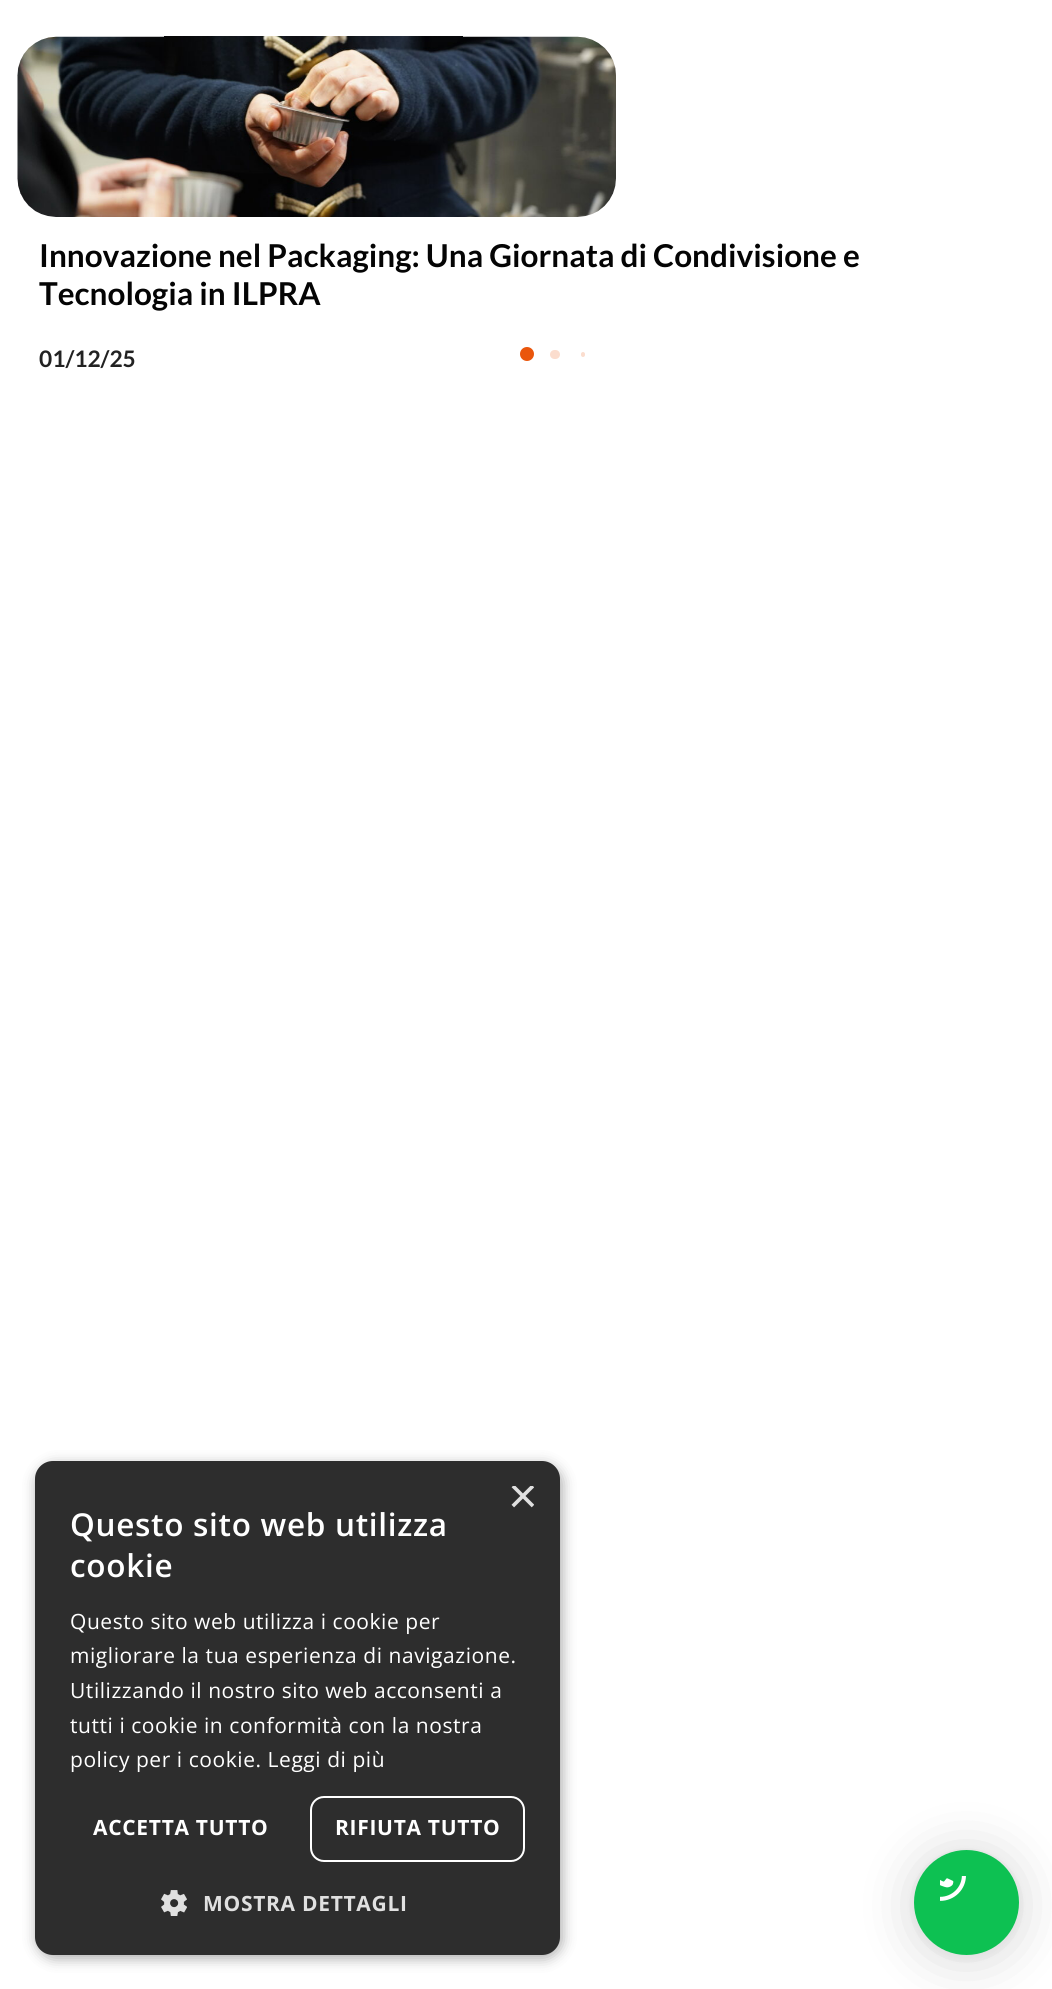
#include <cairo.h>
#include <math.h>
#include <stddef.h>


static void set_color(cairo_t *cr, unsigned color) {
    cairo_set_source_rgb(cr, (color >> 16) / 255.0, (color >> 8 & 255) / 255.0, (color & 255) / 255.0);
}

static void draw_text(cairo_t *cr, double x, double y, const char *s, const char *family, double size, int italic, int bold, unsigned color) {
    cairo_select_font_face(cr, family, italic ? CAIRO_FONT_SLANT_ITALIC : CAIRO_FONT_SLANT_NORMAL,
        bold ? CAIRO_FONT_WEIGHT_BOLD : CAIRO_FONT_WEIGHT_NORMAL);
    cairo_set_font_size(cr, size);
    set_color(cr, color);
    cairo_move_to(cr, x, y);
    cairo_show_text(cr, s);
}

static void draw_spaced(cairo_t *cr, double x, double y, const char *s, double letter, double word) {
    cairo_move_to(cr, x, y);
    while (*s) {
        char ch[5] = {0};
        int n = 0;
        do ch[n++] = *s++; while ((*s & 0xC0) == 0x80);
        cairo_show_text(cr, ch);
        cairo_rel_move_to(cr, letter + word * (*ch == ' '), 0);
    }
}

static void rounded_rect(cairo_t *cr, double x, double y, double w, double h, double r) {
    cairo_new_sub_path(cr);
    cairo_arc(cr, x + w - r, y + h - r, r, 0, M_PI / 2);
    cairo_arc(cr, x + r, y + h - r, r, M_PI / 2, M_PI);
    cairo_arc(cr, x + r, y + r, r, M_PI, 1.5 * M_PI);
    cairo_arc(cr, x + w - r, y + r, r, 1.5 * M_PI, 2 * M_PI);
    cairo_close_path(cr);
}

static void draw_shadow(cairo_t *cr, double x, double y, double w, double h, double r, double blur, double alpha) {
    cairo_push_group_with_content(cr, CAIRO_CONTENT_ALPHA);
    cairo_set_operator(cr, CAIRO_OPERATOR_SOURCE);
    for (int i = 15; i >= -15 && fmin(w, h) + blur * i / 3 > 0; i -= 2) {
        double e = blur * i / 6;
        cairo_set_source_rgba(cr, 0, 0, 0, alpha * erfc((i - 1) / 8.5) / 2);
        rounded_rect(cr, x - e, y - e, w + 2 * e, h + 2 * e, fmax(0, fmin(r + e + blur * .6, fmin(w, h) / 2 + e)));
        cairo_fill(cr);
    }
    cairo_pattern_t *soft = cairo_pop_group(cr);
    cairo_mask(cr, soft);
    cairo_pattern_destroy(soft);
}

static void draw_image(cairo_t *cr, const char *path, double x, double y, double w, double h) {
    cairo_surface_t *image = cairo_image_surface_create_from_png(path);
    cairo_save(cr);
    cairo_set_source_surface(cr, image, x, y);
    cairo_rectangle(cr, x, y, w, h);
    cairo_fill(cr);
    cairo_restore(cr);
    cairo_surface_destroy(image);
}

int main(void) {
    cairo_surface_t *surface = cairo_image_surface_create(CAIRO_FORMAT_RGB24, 1052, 1989);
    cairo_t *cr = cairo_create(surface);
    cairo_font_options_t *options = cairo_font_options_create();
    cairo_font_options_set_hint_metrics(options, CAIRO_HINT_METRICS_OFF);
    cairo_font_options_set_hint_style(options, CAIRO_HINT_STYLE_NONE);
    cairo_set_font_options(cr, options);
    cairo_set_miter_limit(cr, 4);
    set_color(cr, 0xFFFFFF);
    cairo_paint(cr);
    draw_image(cr, "assets/img1.png", 17, 36, 599, 181);
    draw_text(cr, 39, 267, "Innovazione nel Packaging: Una Giornata di Condivisione e", "Lato", 31.5, 0, 1, 0x040404);
    draw_text(cr, 39, 305, "Tecnologia in ILPRA", "Lato", 31.5, 0, 1, 0x040404);
    draw_text(cr, 39, 367, "01/12/25", "Lato", 22.75, 0, 1, 0x222222);
    set_color(cr, 0xEA560C);
    cairo_new_path(cr);
    cairo_arc(cr, 527, 354, 7, 0, 2 * M_PI);
    cairo_fill(cr);
    set_color(cr, 0xFBDDCE);
    rounded_rect(cr, 550, 350, 10, 9, 4.5);
    cairo_fill(cr);
    rounded_rect(cr, 581, 352, 4, 5, 2);
    cairo_fill(cr);
    set_color(cr, 0x000000);
    draw_shadow(cr, 37, 1465, 525, 493, 18, 7, 0.35);
    set_color(cr, 0x2D2D2D);
    rounded_rect(cr, 35, 1461, 525, 494, 18);
    cairo_fill(cr);
    cairo_save(cr);
    cairo_rectangle(cr, 508, 1486, 26, 26);
    cairo_clip(cr);
    draw_text(cr, 508, 1513, "×", "Liberation Sans", 51, 0, 0, 0xE0E0E0);
    cairo_restore(cr);
    cairo_select_font_face(cr, "Open Sans SemiBold", CAIRO_FONT_SLANT_NORMAL, CAIRO_FONT_WEIGHT_NORMAL);
    cairo_set_font_size(cr, 31.5);
    set_color(cr, 0xFFFFFF);
    draw_spaced(cr, 70, 1536, "Questo sito web utilizza", 0.7, 0);
    draw_spaced(cr, 70, 1577, "cookie", 0.7, 0);
    cairo_select_font_face(cr, "Open Sans", CAIRO_FONT_SLANT_NORMAL, CAIRO_FONT_WEIGHT_NORMAL);
    cairo_set_font_size(cr, 21);
    draw_spaced(cr, 70, 1629, "Questo sito web utilizza i cookie per", 0.55, 0);
    draw_spaced(cr, 70, 1663, "migliorare la tua esperienza di navigazione.", 0.55, 0);
    draw_spaced(cr, 70, 1698, "Utilizzando il nostro sito web acconsenti a", 0.55, 0);
    draw_spaced(cr, 70, 1733, "tutti i cookie in conformità con la nostra", 0.55, 0);
    draw_spaced(cr, 70, 1767, "policy per i cookie. Leggi di più", 0.55, 0);
    cairo_select_font_face(cr, "Open Sans", CAIRO_FONT_SLANT_NORMAL, CAIRO_FONT_WEIGHT_BOLD);
    draw_spaced(cr, 93, 1835, "ACCETTA TUTTO", 0.7, 0);
    rounded_rect(cr, 311, 1797, 213, 64, 13);
    cairo_stroke(cr);
    draw_spaced(cr, 335, 1835, "RIFIUTA TUTTO", 0.7, 0);
    draw_image(cr, "assets/img2.png", 161, 1890, 26, 26);
    set_color(cr, 0xE0E0E0);
    draw_spaced(cr, 203, 1911, "MOSTRA DETTAGLI", 0.7, 0);
    set_color(cr, 0x000000);
    draw_shadow(cr, 914, 1853, 105, 105, 52.5, 28, 0.16);
    draw_shadow(cr, 914, 1852, 105, 105, 52.5, 5, 0.06);
    set_color(cr, 0x0DC152);
    cairo_arc(cr, 966.5, 1902.5, 52.5, 0, 2 * M_PI);
    cairo_fill(cr);
    draw_image(cr, "assets/img3.png", 940, 1876, 26, 25);
    cairo_surface_write_to_png(surface, "output.png");
    cairo_font_options_destroy(options);
    cairo_destroy(cr);
    cairo_surface_destroy(surface);
    return 0;
}
